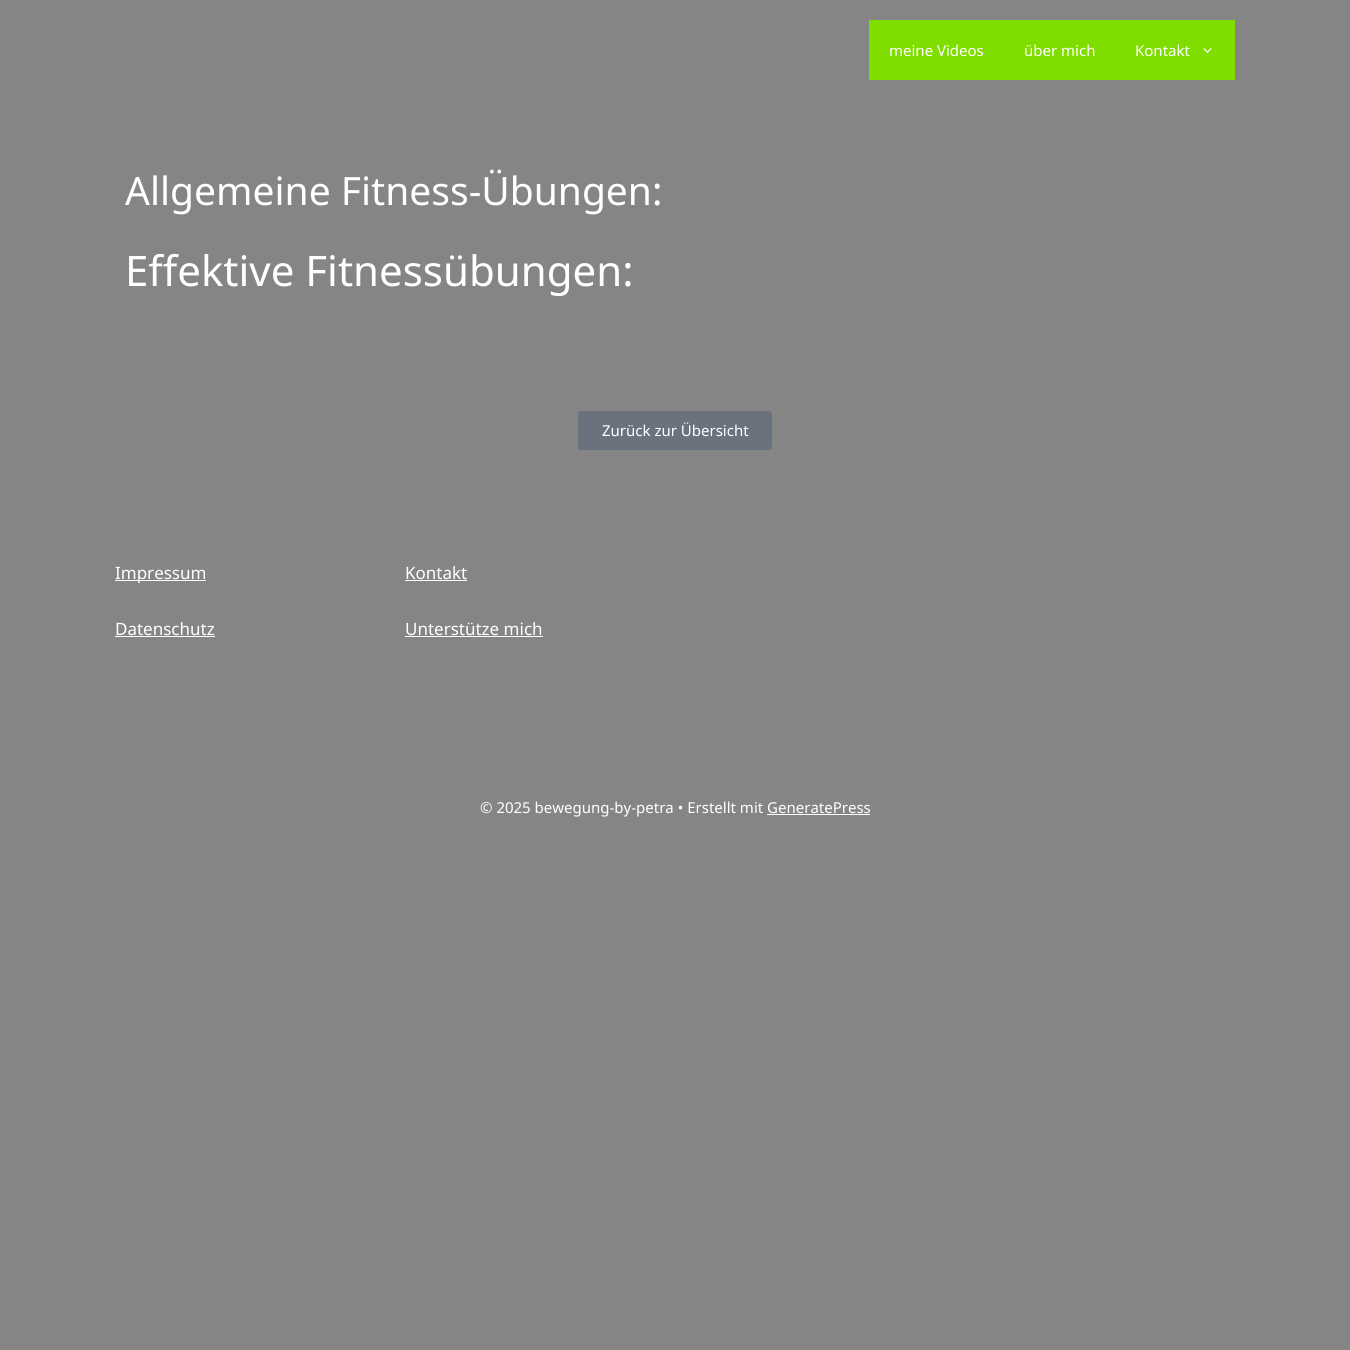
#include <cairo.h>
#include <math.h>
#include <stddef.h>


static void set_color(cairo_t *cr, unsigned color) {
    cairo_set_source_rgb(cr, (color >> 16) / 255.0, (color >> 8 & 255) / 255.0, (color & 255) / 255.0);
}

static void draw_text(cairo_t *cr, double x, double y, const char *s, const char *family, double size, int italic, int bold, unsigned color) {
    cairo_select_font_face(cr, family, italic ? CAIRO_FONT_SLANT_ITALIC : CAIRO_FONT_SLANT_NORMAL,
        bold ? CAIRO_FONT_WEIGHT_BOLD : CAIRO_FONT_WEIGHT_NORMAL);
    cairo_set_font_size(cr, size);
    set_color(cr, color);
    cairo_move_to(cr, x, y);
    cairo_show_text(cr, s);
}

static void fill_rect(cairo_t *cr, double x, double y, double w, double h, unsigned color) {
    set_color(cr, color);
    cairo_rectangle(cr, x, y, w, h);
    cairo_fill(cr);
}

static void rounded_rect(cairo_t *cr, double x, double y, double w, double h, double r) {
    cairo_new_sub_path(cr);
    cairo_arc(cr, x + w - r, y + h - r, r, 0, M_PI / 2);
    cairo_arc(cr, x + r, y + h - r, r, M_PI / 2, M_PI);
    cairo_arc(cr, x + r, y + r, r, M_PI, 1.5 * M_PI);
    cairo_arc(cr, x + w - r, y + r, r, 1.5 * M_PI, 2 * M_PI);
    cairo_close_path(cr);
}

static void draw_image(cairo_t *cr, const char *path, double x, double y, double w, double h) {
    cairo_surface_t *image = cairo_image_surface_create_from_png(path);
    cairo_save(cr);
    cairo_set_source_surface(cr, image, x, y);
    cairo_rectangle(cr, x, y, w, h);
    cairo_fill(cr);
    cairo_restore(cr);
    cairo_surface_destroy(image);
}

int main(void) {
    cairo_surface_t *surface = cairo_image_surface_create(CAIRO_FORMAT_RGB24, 1350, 1350);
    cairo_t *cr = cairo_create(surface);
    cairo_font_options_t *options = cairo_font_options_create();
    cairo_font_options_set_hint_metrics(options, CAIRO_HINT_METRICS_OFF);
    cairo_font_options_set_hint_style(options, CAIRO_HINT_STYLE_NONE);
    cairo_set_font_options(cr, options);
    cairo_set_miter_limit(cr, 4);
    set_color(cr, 0x858585);
    cairo_paint(cr);
    fill_rect(cr, 869, 20, 366, 60, 0x7FDE00);
    draw_text(cr, 889, 56, "meine Videos", "Noto Sans", 15, 0, 0, 0xFFFFFF);
    draw_text(cr, 1024, 56, "über mich", "Noto Sans", 15, 0, 0, 0xFFFFFF);
    draw_text(cr, 1135, 56, "Kontakt", "Noto Sans", 15, 0, 0, 0xFFFFFF);
    draw_image(cr, "assets/img1.png", 1203, 48, 9, 5);
    draw_text(cr, 125, 205, "Allgemeine Fitness-Übungen:", "Noto Sans", 39, 0, 0, 0xFFFFFF);
    draw_text(cr, 125, 286, "Effektive Fitnessübungen:", "Noto Sans", 42, 0, 0, 0xFFFFFF);
    set_color(cr, 0x69727D);
    rounded_rect(cr, 578, 411, 194, 39, 3);
    cairo_fill(cr);
    draw_text(cr, 602, 436, "Zurück zur Übersicht", "Noto Sans", 15, 0, 0, 0xFFFFFF);
    fill_rect(cr, 115, 580, 91, 1, 0xFFFFFF);
    draw_text(cr, 115, 579, "Impressum", "Noto Sans", 17, 0, 0, 0xFFFFFF);
    draw_text(cr, 115, 635, "Datenschutz", "Noto Sans", 17, 0, 0, 0xFFFFFF);
    fill_rect(cr, 115, 636, 100, 1, 0xFFFFFF);
    draw_text(cr, 405, 579, "Kontakt", "Noto Sans", 17, 0, 0, 0xFFFFFF);
    fill_rect(cr, 405, 580, 62, 1, 0xFFFFFF);
    draw_text(cr, 405, 635, "Unterstütze mich", "Noto Sans", 17, 0, 0, 0xFFFFFF);
    fill_rect(cr, 405, 636, 138, 1, 0xFFFFFF);
    draw_text(cr, 480, 813, "© 2025 bewegung-by-petra • Erstellt mit GeneratePress", "Noto Sans", 15, 0, 0, 0xFFFFFF);
    fill_rect(cr, 767, 814, 103, 1, 0xFFFFFF);
    cairo_surface_write_to_png(surface, "output.png");
    cairo_font_options_destroy(options);
    cairo_destroy(cr);
    cairo_surface_destroy(surface);
    return 0;
}
